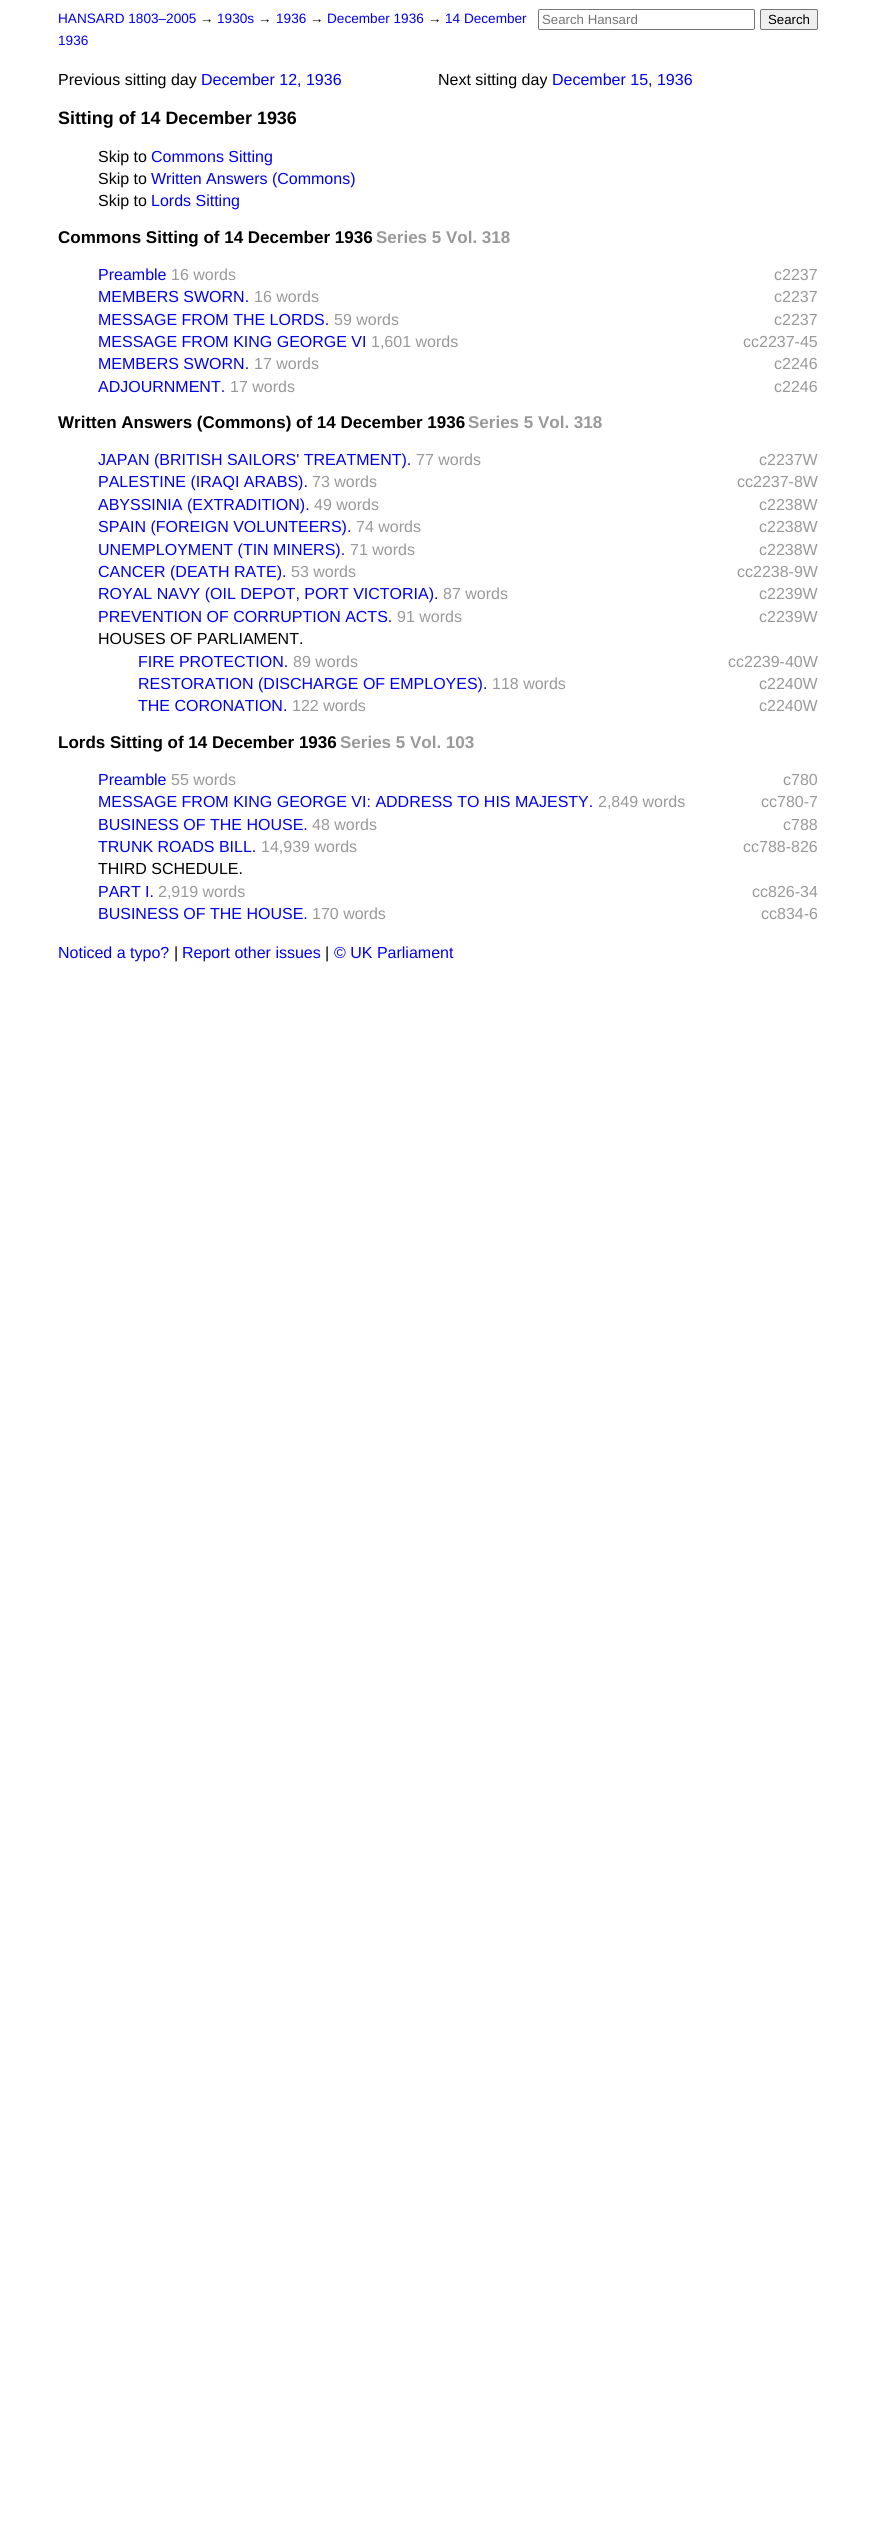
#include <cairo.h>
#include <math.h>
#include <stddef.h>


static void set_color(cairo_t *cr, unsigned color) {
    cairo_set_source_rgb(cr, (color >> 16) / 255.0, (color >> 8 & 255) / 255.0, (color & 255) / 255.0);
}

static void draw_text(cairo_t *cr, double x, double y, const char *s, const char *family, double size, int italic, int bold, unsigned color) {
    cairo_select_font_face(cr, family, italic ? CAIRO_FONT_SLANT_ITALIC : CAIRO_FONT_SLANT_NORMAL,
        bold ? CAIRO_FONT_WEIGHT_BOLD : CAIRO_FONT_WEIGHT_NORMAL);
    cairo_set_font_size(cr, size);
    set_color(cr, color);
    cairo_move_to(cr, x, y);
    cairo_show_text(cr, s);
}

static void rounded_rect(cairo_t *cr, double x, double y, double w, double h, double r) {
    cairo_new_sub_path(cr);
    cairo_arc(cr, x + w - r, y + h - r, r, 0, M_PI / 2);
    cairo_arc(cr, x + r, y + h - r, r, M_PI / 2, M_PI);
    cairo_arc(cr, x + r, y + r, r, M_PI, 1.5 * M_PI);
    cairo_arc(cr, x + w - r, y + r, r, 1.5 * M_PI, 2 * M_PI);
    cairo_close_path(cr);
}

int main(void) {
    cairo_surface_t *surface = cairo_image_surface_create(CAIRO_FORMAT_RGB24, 876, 2527);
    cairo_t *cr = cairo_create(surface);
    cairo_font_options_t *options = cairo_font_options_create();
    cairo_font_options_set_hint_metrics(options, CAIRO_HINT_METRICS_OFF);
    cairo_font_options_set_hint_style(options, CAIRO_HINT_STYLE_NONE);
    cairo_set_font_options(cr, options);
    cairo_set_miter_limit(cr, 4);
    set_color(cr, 0xFFFFFF);
    cairo_paint(cr);
    draw_text(cr, 58, 23, "HANSARD 1803–2005", "Liberation Sans", 13.6, 0, 0, 0x0000EE);
    draw_text(cr, 200, 23, "→", "Liberation Sans", 13.6, 0, 0, 0x000000);
    draw_text(cr, 217, 23, "1930s", "Liberation Sans", 13.6, 0, 0, 0x0000EE);
    draw_text(cr, 258, 23, "→", "Liberation Sans", 13.6, 0, 0, 0x000000);
    draw_text(cr, 276, 23, "1936", "Liberation Sans", 13.6, 0, 0, 0x0000EE);
    draw_text(cr, 310, 23, "→", "Liberation Sans", 13.6, 0, 0, 0x000000);
    draw_text(cr, 327, 23, "December 1936", "Liberation Sans", 13.6, 0, 0, 0x0000EE);
    draw_text(cr, 428, 23, "→", "Liberation Sans", 13.6, 0, 0, 0x000000);
    draw_text(cr, 445, 23, "14 December", "Liberation Sans", 13.6, 0, 0, 0x0000EE);
    draw_text(cr, 58, 45, "1936", "Liberation Sans", 13.6, 0, 0, 0x0000EE);
    rounded_rect(cr, 538.5, 9.5, 216, 20, 1.5);
    set_color(cr, 0x767676);
    cairo_set_line_width(cr, 1);
    cairo_stroke(cr);
    draw_text(cr, 542, 24, "Search Hansard", "Liberation Sans", 13.25, 0, 0, 0x757575);
    set_color(cr, 0xEFEFEF);
    rounded_rect(cr, 760.5, 9.5, 57, 20, 1.5);
    cairo_fill_preserve(cr);
    set_color(cr, 0x767676);
    cairo_stroke(cr);
    draw_text(cr, 768, 24, "Search", "Liberation Sans", 13.25, 0, 0, 0x000000);
    draw_text(cr, 58, 85, "Previous sitting day", "Liberation Sans", 16, 0, 0, 0x000000);
    draw_text(cr, 201, 85, "December 12, 1936", "Liberation Sans", 16, 0, 0, 0x0000EE);
    draw_text(cr, 438, 85, "Next sitting day", "Liberation Sans", 16, 0, 0, 0x000000);
    draw_text(cr, 552, 85, "December 15, 1936", "Liberation Sans", 16, 0, 0, 0x0000EE);
    draw_text(cr, 58, 124, "Sitting of 14 December 1936", "Liberation Sans", 17.9, 0, 1, 0x000000);
    draw_text(cr, 98, 162, "Skip to", "Liberation Sans", 16, 0, 0, 0x000000);
    draw_text(cr, 151, 162, "Commons Sitting", "Liberation Sans", 16, 0, 0, 0x0000EE);
    draw_text(cr, 98, 184, "Skip to", "Liberation Sans", 16, 0, 0, 0x000000);
    draw_text(cr, 151, 184, "Written Answers (Commons)", "Liberation Sans", 16, 0, 0, 0x0000EE);
    draw_text(cr, 98, 206, "Skip to", "Liberation Sans", 16, 0, 0, 0x000000);
    draw_text(cr, 151, 206, "Lords Sitting", "Liberation Sans", 16, 0, 0, 0x0000EE);
    draw_text(cr, 58, 243, "Commons Sitting of 14 December 1936", "Liberation Sans", 17, 0, 1, 0x000000);
    draw_text(cr, 376, 243, "Series 5 Vol. 318", "Liberation Sans", 17, 0, 1, 0x999999);
    draw_text(cr, 98, 280, "Preamble", "Liberation Sans", 16, 0, 0, 0x0000EE);
    draw_text(cr, 171, 280, "16 words", "Liberation Sans", 16, 0, 0, 0x999999);
    draw_text(cr, 774, 280, "c2237", "Liberation Sans", 16, 0, 0, 0x999999);
    draw_text(cr, 98, 302, "MEMBERS SWORN.", "Liberation Sans", 16, 0, 0, 0x0000EE);
    draw_text(cr, 254, 302, "16 words", "Liberation Sans", 16, 0, 0, 0x999999);
    draw_text(cr, 774, 302, "c2237", "Liberation Sans", 16, 0, 0, 0x999999);
    draw_text(cr, 98, 325, "MESSAGE FROM THE LORDS.", "Liberation Sans", 16, 0, 0, 0x0000EE);
    draw_text(cr, 334, 325, "59 words", "Liberation Sans", 16, 0, 0, 0x999999);
    draw_text(cr, 774, 325, "c2237", "Liberation Sans", 16, 0, 0, 0x999999);
    draw_text(cr, 98, 347, "MESSAGE FROM KING GEORGE VI", "Liberation Sans", 16, 0, 0, 0x0000EE);
    draw_text(cr, 371, 347, "1,601 words", "Liberation Sans", 16, 0, 0, 0x999999);
    draw_text(cr, 743, 347, "cc2237-45", "Liberation Sans", 16, 0, 0, 0x999999);
    draw_text(cr, 98, 369, "MEMBERS SWORN.", "Liberation Sans", 16, 0, 0, 0x0000EE);
    draw_text(cr, 254, 369, "17 words", "Liberation Sans", 16, 0, 0, 0x999999);
    draw_text(cr, 774, 369, "c2246", "Liberation Sans", 16, 0, 0, 0x999999);
    draw_text(cr, 98, 392, "ADJOURNMENT.", "Liberation Sans", 16, 0, 0, 0x0000EE);
    draw_text(cr, 230, 392, "17 words", "Liberation Sans", 16, 0, 0, 0x999999);
    draw_text(cr, 774, 392, "c2246", "Liberation Sans", 16, 0, 0, 0x999999);
    draw_text(cr, 58, 428, "Written Answers (Commons) of 14 December 1936", "Liberation Sans", 17, 0, 1, 0x000000);
    draw_text(cr, 468, 428, "Series 5 Vol. 318", "Liberation Sans", 17, 0, 1, 0x999999);
    draw_text(cr, 98, 465, "JAPAN (BRITISH SAILORS' TREATMENT).", "Liberation Sans", 16, 0, 0, 0x0000EE);
    draw_text(cr, 416, 465, "77 words", "Liberation Sans", 16, 0, 0, 0x999999);
    draw_text(cr, 759, 465, "c2237W", "Liberation Sans", 16, 0, 0, 0x999999);
    draw_text(cr, 98, 487, "PALESTINE (IRAQI ARABS).", "Liberation Sans", 16, 0, 0, 0x0000EE);
    draw_text(cr, 312, 487, "73 words", "Liberation Sans", 16, 0, 0, 0x999999);
    draw_text(cr, 737, 487, "cc2237-8W", "Liberation Sans", 16, 0, 0, 0x999999);
    draw_text(cr, 98, 510, "ABYSSINIA (EXTRADITION).", "Liberation Sans", 16, 0, 0, 0x0000EE);
    draw_text(cr, 314, 510, "49 words", "Liberation Sans", 16, 0, 0, 0x999999);
    draw_text(cr, 759, 510, "c2238W", "Liberation Sans", 16, 0, 0, 0x999999);
    draw_text(cr, 98, 532, "SPAIN (FOREIGN VOLUNTEERS).", "Liberation Sans", 16, 0, 0, 0x0000EE);
    draw_text(cr, 356, 532, "74 words", "Liberation Sans", 16, 0, 0, 0x999999);
    draw_text(cr, 759, 532, "c2238W", "Liberation Sans", 16, 0, 0, 0x999999);
    draw_text(cr, 98, 555, "UNEMPLOYMENT (TIN MINERS).", "Liberation Sans", 16, 0, 0, 0x0000EE);
    draw_text(cr, 350, 555, "71 words", "Liberation Sans", 16, 0, 0, 0x999999);
    draw_text(cr, 759, 555, "c2238W", "Liberation Sans", 16, 0, 0, 0x999999);
    draw_text(cr, 98, 577, "CANCER (DEATH RATE).", "Liberation Sans", 16, 0, 0, 0x0000EE);
    draw_text(cr, 291, 577, "53 words", "Liberation Sans", 16, 0, 0, 0x999999);
    draw_text(cr, 737, 577, "cc2238-9W", "Liberation Sans", 16, 0, 0, 0x999999);
    draw_text(cr, 98, 599, "ROYAL NAVY (OIL DEPOT, PORT VICTORIA).", "Liberation Sans", 16, 0, 0, 0x0000EE);
    draw_text(cr, 443, 599, "87 words", "Liberation Sans", 16, 0, 0, 0x999999);
    draw_text(cr, 759, 599, "c2239W", "Liberation Sans", 16, 0, 0, 0x999999);
    draw_text(cr, 98, 622, "PREVENTION OF CORRUPTION ACTS.", "Liberation Sans", 16, 0, 0, 0x0000EE);
    draw_text(cr, 397, 622, "91 words", "Liberation Sans", 16, 0, 0, 0x999999);
    draw_text(cr, 759, 622, "c2239W", "Liberation Sans", 16, 0, 0, 0x999999);
    draw_text(cr, 98, 644, "HOUSES OF PARLIAMENT.", "Liberation Sans", 16, 0, 0, 0x000000);
    draw_text(cr, 138, 667, "FIRE PROTECTION.", "Liberation Sans", 16, 0, 0, 0x0000EE);
    draw_text(cr, 293, 667, "89 words", "Liberation Sans", 16, 0, 0, 0x999999);
    draw_text(cr, 728, 667, "cc2239-40W", "Liberation Sans", 16, 0, 0, 0x999999);
    draw_text(cr, 138, 689, "RESTORATION (DISCHARGE OF EMPLOYES).", "Liberation Sans", 16, 0, 0, 0x0000EE);
    draw_text(cr, 492, 689, "118 words", "Liberation Sans", 16, 0, 0, 0x999999);
    draw_text(cr, 759, 689, "c2240W", "Liberation Sans", 16, 0, 0, 0x999999);
    draw_text(cr, 138, 711, "THE CORONATION.", "Liberation Sans", 16, 0, 0, 0x0000EE);
    draw_text(cr, 292, 711, "122 words", "Liberation Sans", 16, 0, 0, 0x999999);
    draw_text(cr, 759, 711, "c2240W", "Liberation Sans", 16, 0, 0, 0x999999);
    draw_text(cr, 58, 748, "Lords Sitting of 14 December 1936", "Liberation Sans", 17, 0, 1, 0x000000);
    draw_text(cr, 340, 748, "Series 5 Vol. 103", "Liberation Sans", 17, 0, 1, 0x999999);
    draw_text(cr, 98, 785, "Preamble", "Liberation Sans", 16, 0, 0, 0x0000EE);
    draw_text(cr, 171, 785, "55 words", "Liberation Sans", 16, 0, 0, 0x999999);
    draw_text(cr, 783, 785, "c780", "Liberation Sans", 16, 0, 0, 0x999999);
    draw_text(cr, 98, 807, "MESSAGE FROM KING GEORGE VI: ADDRESS TO HIS MAJESTY.", "Liberation Sans", 16, 0, 0, 0x0000EE);
    draw_text(cr, 598, 807, "2,849 words", "Liberation Sans", 16, 0, 0, 0x999999);
    draw_text(cr, 761, 807, "cc780-7", "Liberation Sans", 16, 0, 0, 0x999999);
    draw_text(cr, 98, 830, "BUSINESS OF THE HOUSE.", "Liberation Sans", 16, 0, 0, 0x0000EE);
    draw_text(cr, 312, 830, "48 words", "Liberation Sans", 16, 0, 0, 0x999999);
    draw_text(cr, 783, 830, "c788", "Liberation Sans", 16, 0, 0, 0x999999);
    draw_text(cr, 98, 852, "TRUNK ROADS BILL.", "Liberation Sans", 16, 0, 0, 0x0000EE);
    draw_text(cr, 261, 852, "14,939 words", "Liberation Sans", 16, 0, 0, 0x999999);
    draw_text(cr, 743, 852, "cc788-826", "Liberation Sans", 16, 0, 0, 0x999999);
    draw_text(cr, 98, 874, "THIRD SCHEDULE.", "Liberation Sans", 16, 0, 0, 0x000000);
    draw_text(cr, 98, 897, "PART I.", "Liberation Sans", 16, 0, 0, 0x0000EE);
    draw_text(cr, 158, 897, "2,919 words", "Liberation Sans", 16, 0, 0, 0x999999);
    draw_text(cr, 752, 897, "cc826-34", "Liberation Sans", 16, 0, 0, 0x999999);
    draw_text(cr, 98, 919, "BUSINESS OF THE HOUSE.", "Liberation Sans", 16, 0, 0, 0x0000EE);
    draw_text(cr, 312, 919, "170 words", "Liberation Sans", 16, 0, 0, 0x999999);
    draw_text(cr, 761, 919, "cc834-6", "Liberation Sans", 16, 0, 0, 0x999999);
    draw_text(cr, 58, 958, "Noticed a typo?", "Liberation Sans", 16, 0, 0, 0x0000EE);
    draw_text(cr, 174, 958, "|", "Liberation Sans", 16, 0, 0, 0x000000);
    draw_text(cr, 182, 958, "Report other issues", "Liberation Sans", 16, 0, 0, 0x0000EE);
    draw_text(cr, 325, 958, "|", "Liberation Sans", 16, 0, 0, 0x000000);
    draw_text(cr, 334, 958, "© UK Parliament", "Liberation Sans", 16, 0, 0, 0x0000EE);
    cairo_surface_write_to_png(surface, "output.png");
    cairo_font_options_destroy(options);
    cairo_destroy(cr);
    cairo_surface_destroy(surface);
    return 0;
}
